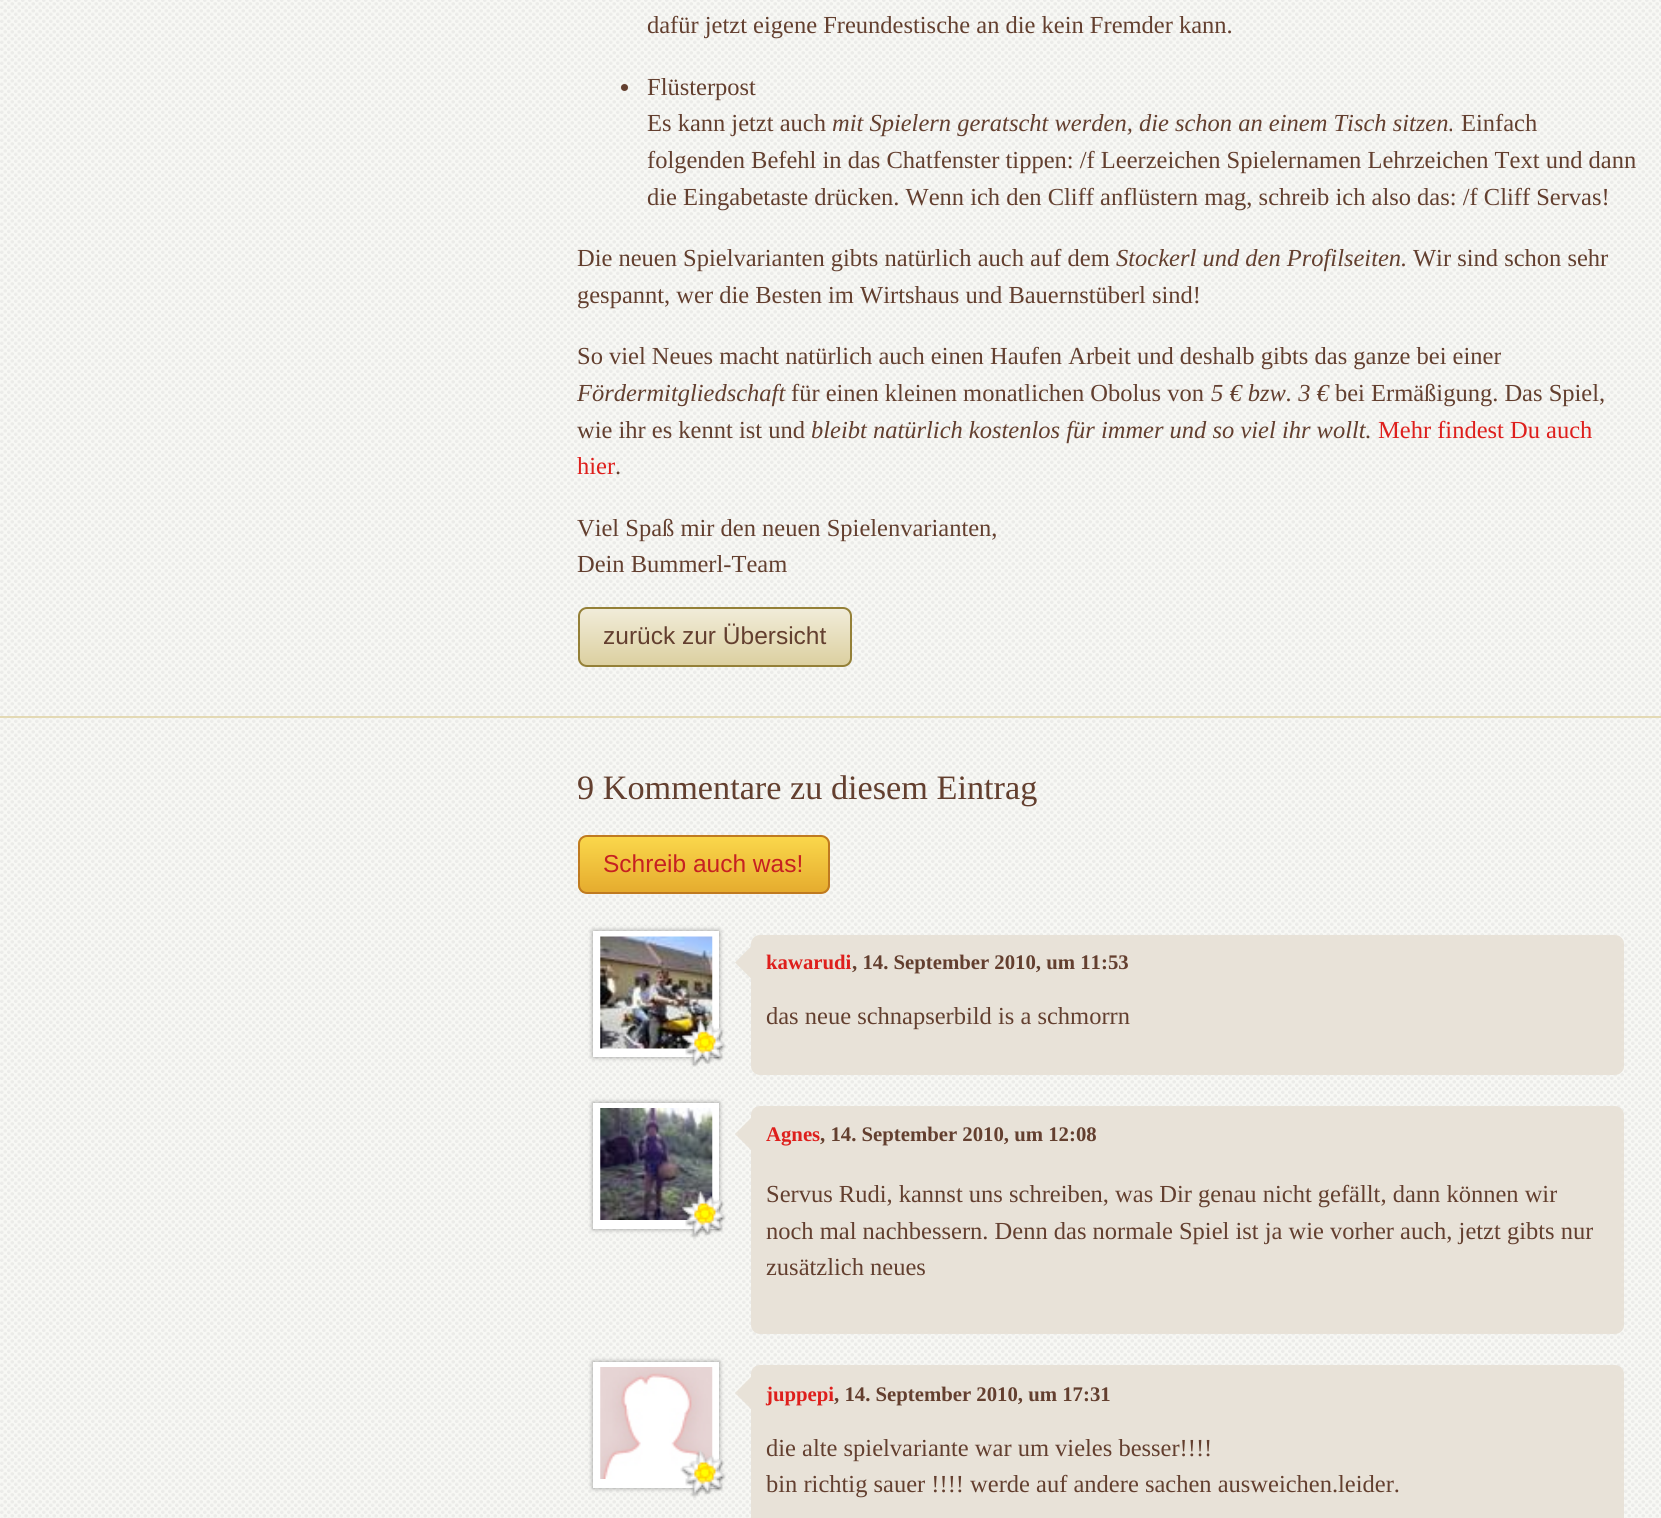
#include <cairo.h>
#include <math.h>
#include <stddef.h>


static void set_color(cairo_t *cr, unsigned color) {
    cairo_set_source_rgb(cr, (color >> 16) / 255.0, (color >> 8 & 255) / 255.0, (color & 255) / 255.0);
}

static void draw_text(cairo_t *cr, double x, double y, const char *s, const char *family, double size, int italic, int bold, unsigned color) {
    cairo_select_font_face(cr, family, italic ? CAIRO_FONT_SLANT_ITALIC : CAIRO_FONT_SLANT_NORMAL,
        bold ? CAIRO_FONT_WEIGHT_BOLD : CAIRO_FONT_WEIGHT_NORMAL);
    cairo_set_font_size(cr, size);
    set_color(cr, color);
    cairo_move_to(cr, x, y);
    cairo_show_text(cr, s);
}

static void fill_rect(cairo_t *cr, double x, double y, double w, double h, unsigned color) {
    set_color(cr, color);
    cairo_rectangle(cr, x, y, w, h);
    cairo_fill(cr);
}

static void rounded_rect(cairo_t *cr, double x, double y, double w, double h, double r) {
    cairo_new_sub_path(cr);
    cairo_arc(cr, x + w - r, y + h - r, r, 0, M_PI / 2);
    cairo_arc(cr, x + r, y + h - r, r, M_PI / 2, M_PI);
    cairo_arc(cr, x + r, y + r, r, M_PI, 1.5 * M_PI);
    cairo_arc(cr, x + w - r, y + r, r, 1.5 * M_PI, 2 * M_PI);
    cairo_close_path(cr);
}

static void draw_shadow(cairo_t *cr, double x, double y, double w, double h, double r, double blur, double alpha) {
    cairo_push_group_with_content(cr, CAIRO_CONTENT_ALPHA);
    cairo_set_operator(cr, CAIRO_OPERATOR_SOURCE);
    for (int i = 15; i >= -15 && fmin(w, h) + blur * i / 3 > 0; i -= 2) {
        double e = blur * i / 6;
        cairo_set_source_rgba(cr, 0, 0, 0, alpha * erfc((i - 1) / 8.5) / 2);
        rounded_rect(cr, x - e, y - e, w + 2 * e, h + 2 * e, fmax(0, fmin(r + e + blur * .6, fmin(w, h) / 2 + e)));
        cairo_fill(cr);
    }
    cairo_pattern_t *soft = cairo_pop_group(cr);
    cairo_mask(cr, soft);
    cairo_pattern_destroy(soft);
}

static void draw_image(cairo_t *cr, const char *path, double x, double y, double w, double h) {
    cairo_surface_t *image = cairo_image_surface_create_from_png(path);
    cairo_save(cr);
    cairo_set_source_surface(cr, image, x, y);
    cairo_rectangle(cr, x, y, w, h);
    cairo_fill(cr);
    cairo_restore(cr);
    cairo_surface_destroy(image);
}

int main(void) {
    cairo_surface_t *surface = cairo_image_surface_create(CAIRO_FORMAT_RGB24, 1661, 1518);
    cairo_t *cr = cairo_create(surface);
    cairo_font_options_t *options = cairo_font_options_create();
    cairo_font_options_set_hint_metrics(options, CAIRO_HINT_METRICS_OFF);
    cairo_font_options_set_hint_style(options, CAIRO_HINT_STYLE_NONE);
    cairo_set_font_options(cr, options);
    cairo_set_miter_limit(cr, 4);
    cairo_pattern_t *gradient;
    set_color(cr, 0xFFFFFF);
    cairo_paint(cr);
    draw_image(cr, "assets/img1.png", 0, 0, 1661, 1518);
    draw_text(cr, 647, 33, "dafür jetzt eigene Freundestische an die kein Fremder kann.", "Liberation Serif", 24.5, 0, 0, 0x633F2F);
    cairo_new_path(cr);
    cairo_arc(cr, 624.5, 87.5, 3.5, 0, 2 * M_PI);
    cairo_fill(cr);
    draw_text(cr, 647, 95, "Flüsterpost", "Liberation Serif", 24.5, 0, 0, 0x633F2F);
    draw_text(cr, 647, 131, "Es kann jetzt auch", "Liberation Serif", 24.5, 0, 0, 0x633F2F);
    draw_text(cr, 832, 131, "mit Spielern geratscht werden, die schon an einem Tisch sitzen.", "Liberation Serif", 24.5, 1, 0, 0x633F2F);
    draw_text(cr, 1461, 131, "Einfach", "Liberation Serif", 24.5, 0, 0, 0x633F2F);
    draw_text(cr, 647, 168, "folgenden Befehl in das Chatfenster tippen: /f Leerzeichen Spielernamen Lehrzeichen Text und dann", "Liberation Serif", 24.5, 0, 0, 0x633F2F);
    draw_text(cr, 647, 205, "die Eingabetaste drücken. Wenn ich den Cliff anflüstern mag, schreib ich also das: /f Cliff Servas!", "Liberation Serif", 24.5, 0, 0, 0x633F2F);
    draw_text(cr, 577, 266, "Die neuen Spielvarianten gibts natürlich auch auf dem", "Liberation Serif", 24.5, 0, 0, 0x633F2F);
    draw_text(cr, 1116, 266, "Stockerl und den Profilseiten.", "Liberation Serif", 24.5, 1, 0, 0x633F2F);
    draw_text(cr, 1413, 266, "Wir sind schon sehr", "Liberation Serif", 24.5, 0, 0, 0x633F2F);
    draw_text(cr, 577, 303, "gespannt, wer die Besten im Wirtshaus und Bauernstüberl sind!", "Liberation Serif", 24.5, 0, 0, 0x633F2F);
    draw_text(cr, 577, 364, "So viel Neues macht natürlich auch einen Haufen Arbeit und deshalb gibts das ganze bei einer", "Liberation Serif", 24.5, 0, 0, 0x633F2F);
    draw_text(cr, 577, 401, "Fördermitgliedschaft", "Liberation Serif", 24.5, 1, 0, 0x633F2F);
    draw_text(cr, 791, 401, "für einen kleinen monatlichen Obolus von", "Liberation Serif", 24.5, 0, 0, 0x633F2F);
    draw_text(cr, 1211, 401, "5 € bzw. 3 €", "Liberation Serif", 24.5, 1, 0, 0x633F2F);
    draw_text(cr, 1335, 401, "bei Ermäßigung. Das Spiel,", "Liberation Serif", 24.5, 0, 0, 0x633F2F);
    draw_text(cr, 577, 438, "wie ihr es kennt ist und", "Liberation Serif", 24.5, 0, 0, 0x633F2F);
    draw_text(cr, 811, 438, "bleibt natürlich kostenlos für immer und so viel ihr wollt.", "Liberation Serif", 24.5, 1, 0, 0x633F2F);
    draw_text(cr, 1378, 438, "Mehr findest Du auch", "Liberation Serif", 24.5, 0, 0, 0xDE1F1C);
    draw_text(cr, 577, 474, "hier", "Liberation Serif", 24.5, 0, 0, 0xDE1F1C);
    draw_text(cr, 615, 474, ".", "Liberation Serif", 24.5, 0, 0, 0x633F2F);
    draw_text(cr, 577, 536, "Viel Spaß mir den neuen Spielenvarianten,", "Liberation Serif", 24.5, 0, 0, 0x633F2F);
    draw_text(cr, 577, 572, "Dein Bummerl-Team", "Liberation Serif", 24.5, 0, 0, 0x633F2F);
    cairo_save(cr);
    rounded_rect(cr, 578, 607, 274, 60, 9);
    cairo_clip(cr);
    gradient = cairo_pattern_create_linear(715, 609, 715, 665);
    cairo_pattern_add_color_stop_rgba(gradient, 0, 0.945, 0.925, 0.851, 1);
    cairo_pattern_add_color_stop_rgba(gradient, 1, 0.863, 0.816, 0.631, 1);
    cairo_set_source(cr, gradient);
    cairo_pattern_destroy(gradient);
    cairo_rectangle(cr, 578, 609, 274, 56);
    cairo_fill(cr);
    cairo_restore(cr);
    rounded_rect(cr, 579, 608, 272, 58, 8);
    set_color(cr, 0x948037);
    cairo_stroke(cr);
    draw_text(cr, 603, 644, "zurück zur Übersicht", "Liberation Sans", 24.5, 0, 0, 0x633F2F);
    fill_rect(cr, 0, 716, 1661, 2, 0xE3D9B4);
    draw_text(cr, 577, 799, "9 Kommentare zu diesem Eintrag", "Liberation Serif", 34.25, 0, 0, 0x633F2F);
    cairo_save(cr);
    rounded_rect(cr, 578, 835, 252, 59, 9);
    cairo_clip(cr);
    gradient = cairo_pattern_create_linear(704, 837, 704, 893);
    cairo_pattern_add_color_stop_rgba(gradient, 0, 0.98, 0.843, 0.294, 1);
    cairo_pattern_add_color_stop_rgba(gradient, 1, 0.898, 0.671, 0.18, 1);
    cairo_set_source(cr, gradient);
    cairo_pattern_destroy(gradient);
    cairo_rectangle(cr, 578, 837, 252, 56);
    cairo_fill(cr);
    cairo_restore(cr);
    rounded_rect(cr, 579, 836, 250, 57, 8);
    set_color(cr, 0xBF7A20);
    cairo_stroke(cr);
    draw_text(cr, 603, 872, "Schreib auch was!", "Liberation Sans", 24.5, 0, 0, 0xC62121);
    set_color(cr, 0x000000);
    draw_shadow(cr, 593, 931, 126, 126, 0, 2.5, 0.4);
    fill_rect(cr, 593, 931, 126, 126, 0xFFFFFF);
    draw_image(cr, "assets/img2.png", 600, 936, 113, 113);
    draw_image(cr, "assets/img3.png", 681, 1019, 45, 48);
    set_color(cr, 0xE8E2D8);
    rounded_rect(cr, 751, 935, 873, 140, 9);
    cairo_fill(cr);
    cairo_new_path(cr);
    cairo_move_to(cr, 752.5, 945);
    cairo_line_to(cr, 752.5, 980);
    cairo_line_to(cr, 735, 962.5);
    cairo_close_path(cr);
    cairo_fill(cr);
    draw_text(cr, 766, 969, "kawarudi", "Liberation Serif", 20.75, 0, 1, 0xDE1F1C);
    draw_text(cr, 852, 969, ", 14. September 2010, um 11:53", "Liberation Serif", 20.75, 0, 1, 0x633F2F);
    draw_text(cr, 766, 1024, "das neue schnapserbild is a schmorrn", "Liberation Serif", 24.5, 0, 0, 0x633F2F);
    set_color(cr, 0x000000);
    draw_shadow(cr, 593, 1103, 126, 126, 0, 2.5, 0.4);
    fill_rect(cr, 593, 1103, 126, 126, 0xFFFFFF);
    draw_image(cr, "assets/img4.png", 600, 1108, 113, 112);
    draw_image(cr, "assets/img5.png", 681, 1191, 45, 48);
    set_color(cr, 0xE8E2D8);
    rounded_rect(cr, 751, 1106, 873, 228, 9);
    cairo_fill(cr);
    cairo_new_path(cr);
    cairo_move_to(cr, 752.5, 1116.5);
    cairo_line_to(cr, 752.5, 1151.5);
    cairo_line_to(cr, 735, 1134);
    cairo_close_path(cr);
    cairo_fill(cr);
    draw_text(cr, 766, 1141, "Agnes", "Liberation Serif", 20.75, 0, 1, 0xDE1F1C);
    draw_text(cr, 820, 1141, ", 14. September 2010, um 12:08", "Liberation Serif", 20.75, 0, 1, 0x633F2F);
    draw_text(cr, 766, 1202, "Servus Rudi, kannst uns schreiben, was Dir genau nicht gefällt, dann können wir", "Liberation Serif", 24.5, 0, 0, 0x633F2F);
    draw_text(cr, 766, 1239, "noch mal nachbessern. Denn das normale Spiel ist ja wie vorher auch, jetzt gibts nur", "Liberation Serif", 24.5, 0, 0, 0x633F2F);
    draw_text(cr, 766, 1275, "zusätzlich neues", "Liberation Serif", 24.5, 0, 0, 0x633F2F);
    set_color(cr, 0x000000);
    draw_shadow(cr, 593, 1362, 126, 126, 0, 2.5, 0.4);
    fill_rect(cr, 593, 1362, 126, 126, 0xFFFFFF);
    draw_image(cr, "assets/img6.png", 600, 1367, 113, 112);
    draw_image(cr, "assets/img7.png", 680, 1450, 46, 48);
    set_color(cr, 0xE8E2D8);
    rounded_rect(cr, 751, 1365, 873, 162, 9);
    cairo_fill(cr);
    cairo_new_path(cr);
    cairo_move_to(cr, 752.5, 1375.5);
    cairo_line_to(cr, 752.5, 1410.5);
    cairo_line_to(cr, 735, 1393);
    cairo_close_path(cr);
    cairo_fill(cr);
    draw_text(cr, 766, 1401, "juppepi", "Liberation Serif", 20.75, 0, 1, 0xDE1F1C);
    draw_text(cr, 834, 1401, ", 14. September 2010, um 17:31", "Liberation Serif", 20.75, 0, 1, 0x633F2F);
    draw_text(cr, 766, 1456, "die alte spielvariante war um vieles besser!!!!", "Liberation Serif", 24.5, 0, 0, 0x633F2F);
    draw_text(cr, 766, 1492, "bin richtig sauer !!!! werde auf andere sachen ausweichen.leider.", "Liberation Serif", 24.5, 0, 0, 0x633F2F);
    cairo_surface_write_to_png(surface, "output.png");
    cairo_font_options_destroy(options);
    cairo_destroy(cr);
    cairo_surface_destroy(surface);
    return 0;
}
